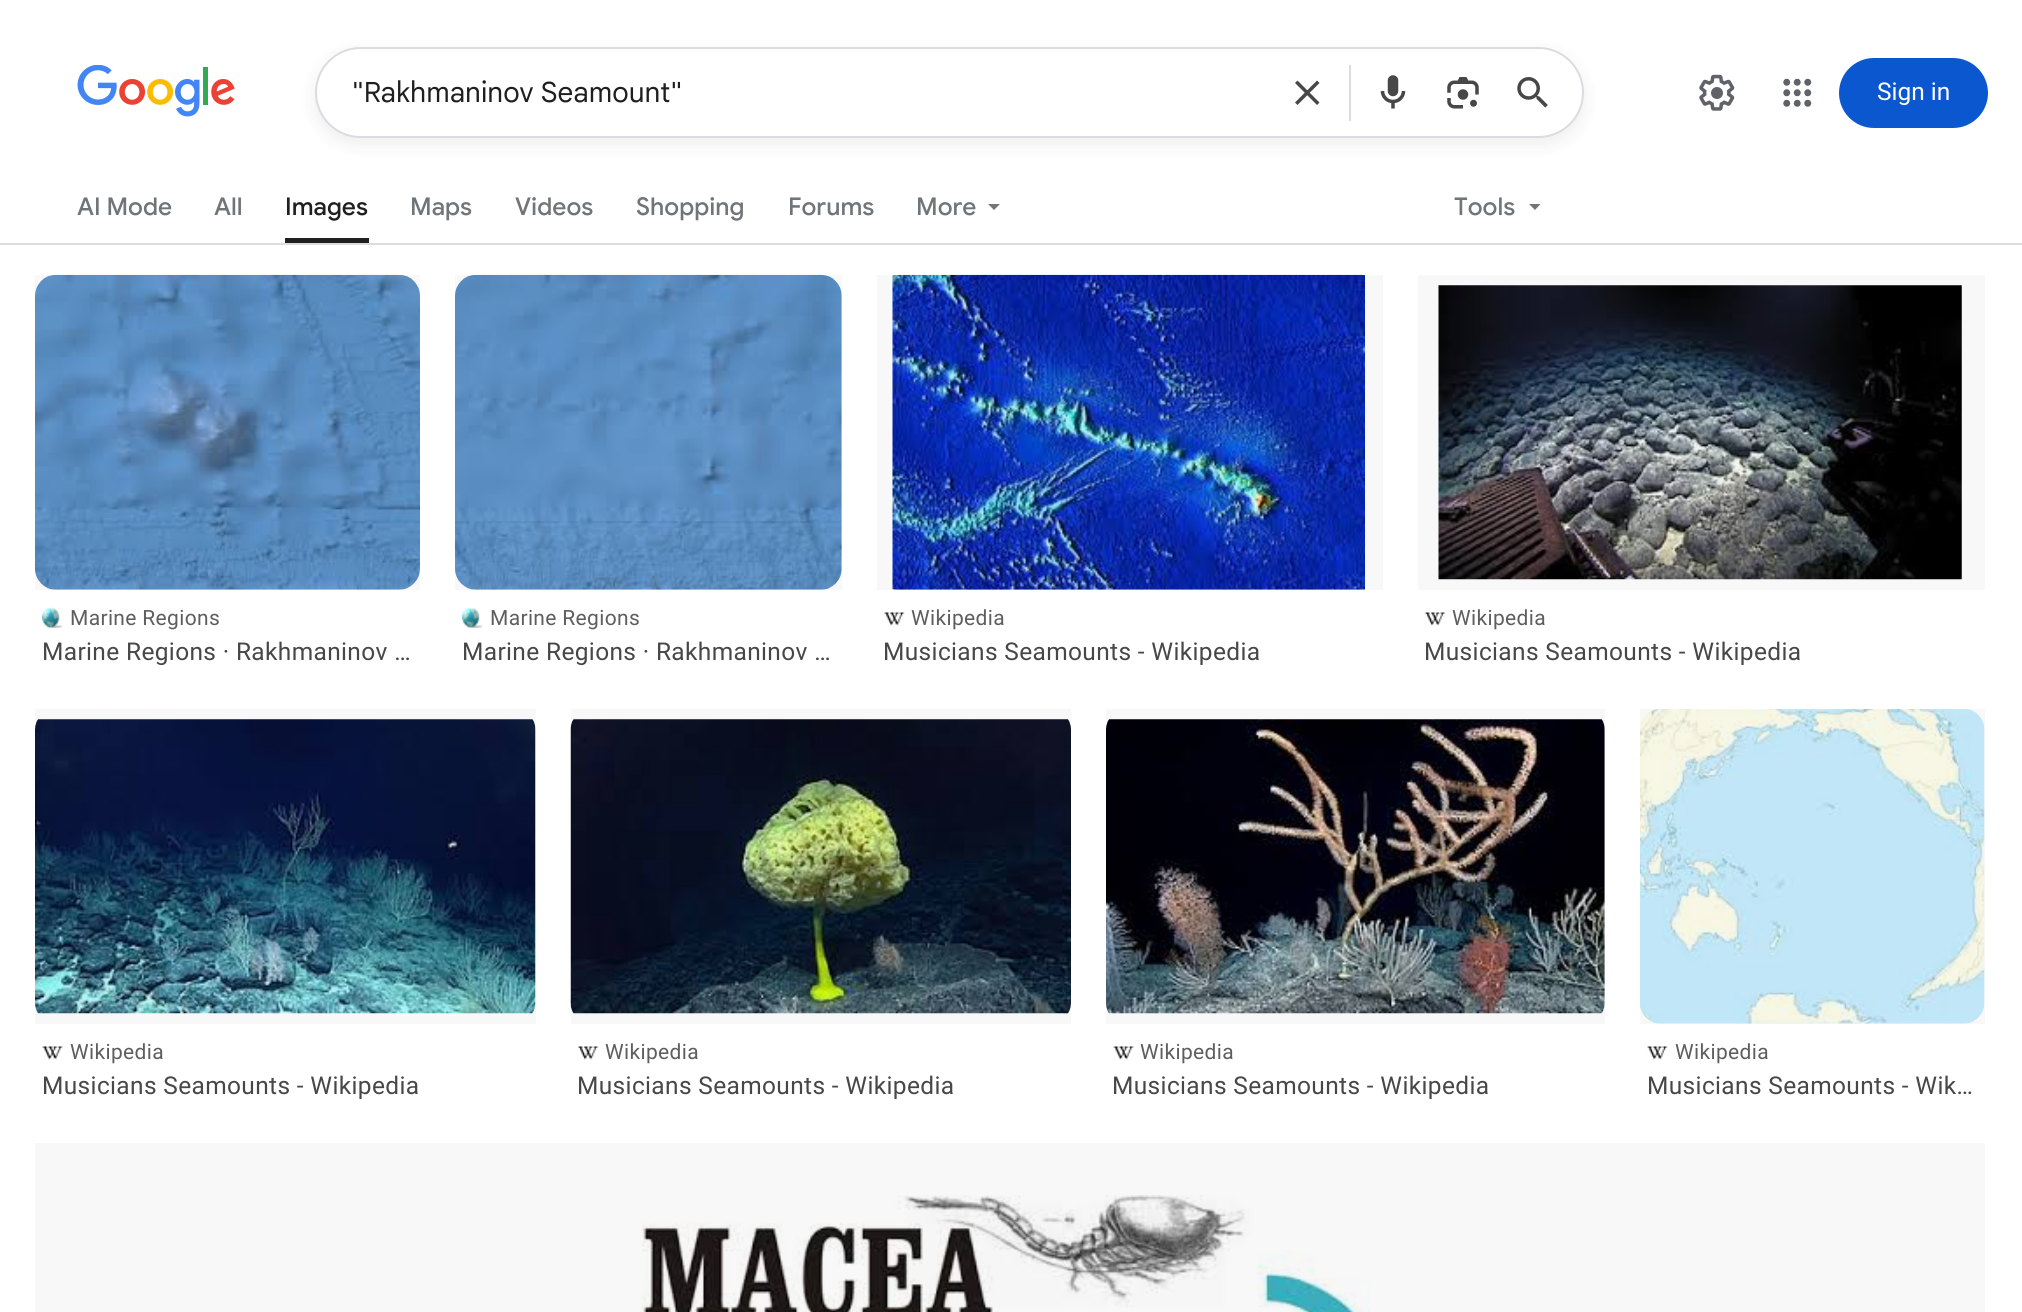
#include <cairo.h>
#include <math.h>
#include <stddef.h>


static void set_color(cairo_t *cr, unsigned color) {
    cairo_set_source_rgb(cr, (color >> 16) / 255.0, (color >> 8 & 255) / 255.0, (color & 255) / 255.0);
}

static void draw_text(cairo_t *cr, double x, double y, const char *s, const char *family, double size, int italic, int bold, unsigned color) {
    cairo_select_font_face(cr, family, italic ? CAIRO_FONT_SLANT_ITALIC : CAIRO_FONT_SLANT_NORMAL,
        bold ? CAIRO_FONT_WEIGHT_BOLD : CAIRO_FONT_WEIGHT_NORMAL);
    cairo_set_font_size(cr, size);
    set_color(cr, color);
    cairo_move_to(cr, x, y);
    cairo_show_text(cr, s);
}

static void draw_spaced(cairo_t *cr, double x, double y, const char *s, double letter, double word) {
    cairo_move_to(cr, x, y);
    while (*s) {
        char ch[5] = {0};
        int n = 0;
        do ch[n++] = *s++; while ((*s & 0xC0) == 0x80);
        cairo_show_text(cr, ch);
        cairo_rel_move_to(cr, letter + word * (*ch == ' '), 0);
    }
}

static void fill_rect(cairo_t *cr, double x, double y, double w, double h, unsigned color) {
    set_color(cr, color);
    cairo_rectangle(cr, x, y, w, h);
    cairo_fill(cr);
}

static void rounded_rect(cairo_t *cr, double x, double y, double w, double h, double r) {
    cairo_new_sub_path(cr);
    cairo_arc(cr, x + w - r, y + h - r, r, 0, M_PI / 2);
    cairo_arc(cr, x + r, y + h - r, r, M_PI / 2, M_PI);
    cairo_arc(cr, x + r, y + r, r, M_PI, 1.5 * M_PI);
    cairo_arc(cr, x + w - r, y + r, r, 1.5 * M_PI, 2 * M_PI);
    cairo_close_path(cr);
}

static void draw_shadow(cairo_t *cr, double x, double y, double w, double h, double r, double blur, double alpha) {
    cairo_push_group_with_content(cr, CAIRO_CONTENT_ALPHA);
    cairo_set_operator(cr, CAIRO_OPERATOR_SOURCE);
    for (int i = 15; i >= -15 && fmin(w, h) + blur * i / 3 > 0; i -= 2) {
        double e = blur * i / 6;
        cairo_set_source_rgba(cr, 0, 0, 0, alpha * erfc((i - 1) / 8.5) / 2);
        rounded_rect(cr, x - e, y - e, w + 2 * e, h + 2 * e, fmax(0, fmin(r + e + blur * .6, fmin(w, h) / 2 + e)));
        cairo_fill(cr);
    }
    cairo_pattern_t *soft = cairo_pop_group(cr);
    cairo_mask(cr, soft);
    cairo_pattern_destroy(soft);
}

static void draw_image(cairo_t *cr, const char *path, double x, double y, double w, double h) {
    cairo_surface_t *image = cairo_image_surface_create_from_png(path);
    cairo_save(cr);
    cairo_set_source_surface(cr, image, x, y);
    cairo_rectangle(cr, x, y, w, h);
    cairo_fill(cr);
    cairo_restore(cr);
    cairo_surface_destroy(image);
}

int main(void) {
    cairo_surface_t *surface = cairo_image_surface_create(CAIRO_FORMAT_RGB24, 2022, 1312);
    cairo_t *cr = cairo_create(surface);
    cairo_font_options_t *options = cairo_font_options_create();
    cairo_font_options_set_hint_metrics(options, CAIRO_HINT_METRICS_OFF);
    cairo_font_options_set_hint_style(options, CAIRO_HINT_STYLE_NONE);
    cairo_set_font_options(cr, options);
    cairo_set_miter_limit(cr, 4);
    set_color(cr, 0xFFFFFF);
    cairo_paint(cr);
    draw_image(cr, "assets/img1.png", 77, 65, 158, 52);
    set_color(cr, 0x1F1F1F);
    draw_shadow(cr, 315, 53, 1269, 91, 45.5, 9, 0.08);
    set_color(cr, 0xFFFFFF);
    rounded_rect(cr, 316, 48, 1267, 89, 44.5);
    cairo_fill_preserve(cr);
    set_color(cr, 0xDADCE0);
    cairo_stroke(cr);
    draw_text(cr, 352, 102, "\"Rakhmaninov Seamount\"", "Google Sans", 28, 0, 0, 0x1F1F1F);
    draw_image(cr, "assets/img2.png", 1295, 80, 25, 25);
    fill_rect(cr, 1349, 65, 2, 56, 0xDADCE0);
    draw_image(cr, "assets/img3.png", 1380, 75, 26, 34);
    draw_image(cr, "assets/img4.png", 1447, 77, 32, 32);
    draw_image(cr, "assets/img5.png", 1517, 77, 31, 31);
    draw_image(cr, "assets/img6.png", 1699, 74, 36, 37);
    draw_image(cr, "assets/img7.png", 1783, 78, 29, 29);
    set_color(cr, 0x0B57D0);
    rounded_rect(cr, 1839, 58, 149, 70, 35);
    cairo_fill(cr);
    draw_text(cr, 1877, 100, "Sign in", "Roboto", 24.5, 0, 0, 0xFFFFFF);
    draw_text(cr, 77, 215, "AI Mode", "Google Sans Medium", 24.5, 0, 0, 0x70757A);
    draw_text(cr, 214, 215, "All", "Google Sans Medium", 24.5, 0, 0, 0x70757A);
    fill_rect(cr, 285, 238, 84, 5, 0x1F1F1F);
    draw_text(cr, 285, 215, "Images", "Google Sans Medium", 24.5, 0, 0, 0x1F1F1F);
    draw_text(cr, 410, 215, "Maps", "Google Sans Medium", 24.5, 0, 0, 0x70757A);
    draw_text(cr, 515, 215, "Videos", "Google Sans Medium", 24.5, 0, 0, 0x70757A);
    draw_text(cr, 636, 215, "Shopping", "Google Sans Medium", 24.5, 0, 0, 0x70757A);
    draw_text(cr, 788, 215, "Forums", "Google Sans Medium", 24.5, 0, 0, 0x70757A);
    draw_text(cr, 916, 215, "More", "Google Sans Medium", 24.5, 0, 0, 0x70757A);
    cairo_new_path(cr);
    cairo_move_to(cr, 988, 204);
    cairo_line_to(cr, 994, 210);
    cairo_line_to(cr, 1000, 204);
    cairo_close_path(cr);
    cairo_fill(cr);
    draw_text(cr, 1454, 215, "Tools", "Google Sans Medium", 24.5, 0, 0, 0x70757A);
    cairo_new_path(cr);
    cairo_move_to(cr, 1529, 204);
    cairo_line_to(cr, 1535, 210);
    cairo_line_to(cr, 1540.5, 204);
    cairo_close_path(cr);
    cairo_fill(cr);
    fill_rect(cr, 0, 243, 2022, 2, 0xDADCE0);
    draw_image(cr, "assets/img8.png", 35, 274, 385, 316);
    cairo_set_source_rgba(cr, 0, 0, 0, 0.03);
    cairo_rectangle(cr, 35, 275, 385, 315);
    cairo_fill(cr);
    draw_image(cr, "assets/img9.png", 42, 607, 21, 22);
    cairo_select_font_face(cr, "Roboto", CAIRO_FONT_SLANT_NORMAL, CAIRO_FONT_WEIGHT_NORMAL);
    cairo_set_font_size(cr, 21);
    set_color(cr, 0x5E5E5E);
    draw_spaced(cr, 70, 625, "Marine Regions", 0.35, 0);
    cairo_set_font_size(cr, 24.5);
    set_color(cr, 0x474747);
    draw_spaced(cr, 42, 660, "Marine Regions · Rakhmaninov …", 0.35, 0);
    draw_image(cr, "assets/img10.png", 455, 274, 387, 316);
    cairo_set_source_rgba(cr, 0, 0, 0, 0.03);
    cairo_rectangle(cr, 455, 275, 387, 315);
    cairo_fill(cr);
    draw_image(cr, "assets/img11.png", 462, 607, 21, 22);
    cairo_set_font_size(cr, 21);
    set_color(cr, 0x5E5E5E);
    draw_spaced(cr, 490, 625, "Marine Regions", 0.35, 0);
    cairo_set_font_size(cr, 24.5);
    set_color(cr, 0x474747);
    draw_spaced(cr, 462, 660, "Marine Regions · Rakhmaninov …", 0.35, 0);
    draw_image(cr, "assets/img12.png", 892, 274, 473, 316);
    cairo_set_source_rgba(cr, 0, 0, 0, 0.03);
    cairo_rectangle(cr, 877, 275, 506, 315);
    cairo_fill(cr);
    draw_image(cr, "assets/img13.png", 884, 612, 21, 14);
    cairo_set_font_size(cr, 21);
    set_color(cr, 0x5E5E5E);
    draw_spaced(cr, 911, 625, "Wikipedia", 0.35, 0);
    cairo_set_font_size(cr, 24.5);
    set_color(cr, 0x474747);
    draw_spaced(cr, 883, 660, "Musicians Seamounts - Wikipedia", 0.35, 0);
    draw_image(cr, "assets/img14.png", 1438, 285, 524, 295);
    cairo_set_source_rgba(cr, 0, 0, 0, 0.03);
    cairo_rectangle(cr, 1418, 275, 567, 315);
    cairo_fill(cr);
    draw_image(cr, "assets/img15.png", 1424, 612, 22, 14);
    cairo_set_font_size(cr, 21);
    set_color(cr, 0x5E5E5E);
    draw_spaced(cr, 1452, 625, "Wikipedia", 0.35, 0);
    cairo_set_font_size(cr, 24.5);
    set_color(cr, 0x474747);
    draw_spaced(cr, 1424, 660, "Musicians Seamounts - Wikipedia", 0.35, 0);
    draw_image(cr, "assets/img16.png", 35, 719, 501, 295);
    cairo_set_source_rgba(cr, 0, 0, 0, 0.03);
    cairo_rectangle(cr, 35, 709, 501, 315);
    cairo_fill(cr);
    draw_image(cr, "assets/img17.png", 42, 1046, 21, 14);
    cairo_set_font_size(cr, 21);
    set_color(cr, 0x5E5E5E);
    draw_spaced(cr, 70, 1059, "Wikipedia", 0.35, 0);
    cairo_set_font_size(cr, 24.5);
    set_color(cr, 0x474747);
    draw_spaced(cr, 42, 1094, "Musicians Seamounts - Wikipedia", 0.35, 0);
    draw_image(cr, "assets/img18.png", 570, 719, 501, 295);
    cairo_set_source_rgba(cr, 0, 0, 0, 0.03);
    cairo_rectangle(cr, 571, 709, 500, 315);
    cairo_fill(cr);
    draw_image(cr, "assets/img15.png", 577, 1046, 22, 14);
    cairo_set_font_size(cr, 21);
    set_color(cr, 0x5E5E5E);
    draw_spaced(cr, 605, 1059, "Wikipedia", 0.35, 0);
    cairo_set_font_size(cr, 24.5);
    set_color(cr, 0x474747);
    draw_spaced(cr, 577, 1094, "Musicians Seamounts - Wikipedia", 0.35, 0);
    draw_image(cr, "assets/img19.png", 1106, 719, 499, 295);
    cairo_set_source_rgba(cr, 0, 0, 0, 0.03);
    cairo_rectangle(cr, 1106, 709, 499, 315);
    cairo_fill(cr);
    draw_image(cr, "assets/img20.png", 1113, 1046, 21, 14);
    cairo_set_font_size(cr, 21);
    set_color(cr, 0x5E5E5E);
    draw_spaced(cr, 1140, 1059, "Wikipedia", 0.35, 0);
    cairo_set_font_size(cr, 24.5);
    set_color(cr, 0x474747);
    draw_spaced(cr, 1112, 1094, "Musicians Seamounts - Wikipedia", 0.35, 0);
    draw_image(cr, "assets/img21.png", 1639, 708, 346, 316);
    cairo_set_source_rgba(cr, 0, 0, 0, 0.03);
    cairo_rectangle(cr, 1640, 709, 345, 315);
    cairo_fill(cr);
    draw_image(cr, "assets/img13.png", 1647, 1046, 21, 14);
    cairo_set_font_size(cr, 21);
    set_color(cr, 0x5E5E5E);
    draw_spaced(cr, 1675, 1059, "Wikipedia", 0.35, 0);
    cairo_set_font_size(cr, 24.5);
    set_color(cr, 0x474747);
    draw_spaced(cr, 1647, 1094, "Musicians Seamounts - Wik…", 0.35, 0);
    draw_image(cr, "assets/img22.png", 642, 1195, 728, 117);
    cairo_set_source_rgba(cr, 0, 0, 0, 0.03);
    cairo_rectangle(cr, 35, 1143, 1950, 169);
    cairo_fill(cr);
    cairo_surface_write_to_png(surface, "output.png");
    cairo_font_options_destroy(options);
    cairo_destroy(cr);
    cairo_surface_destroy(surface);
    return 0;
}
